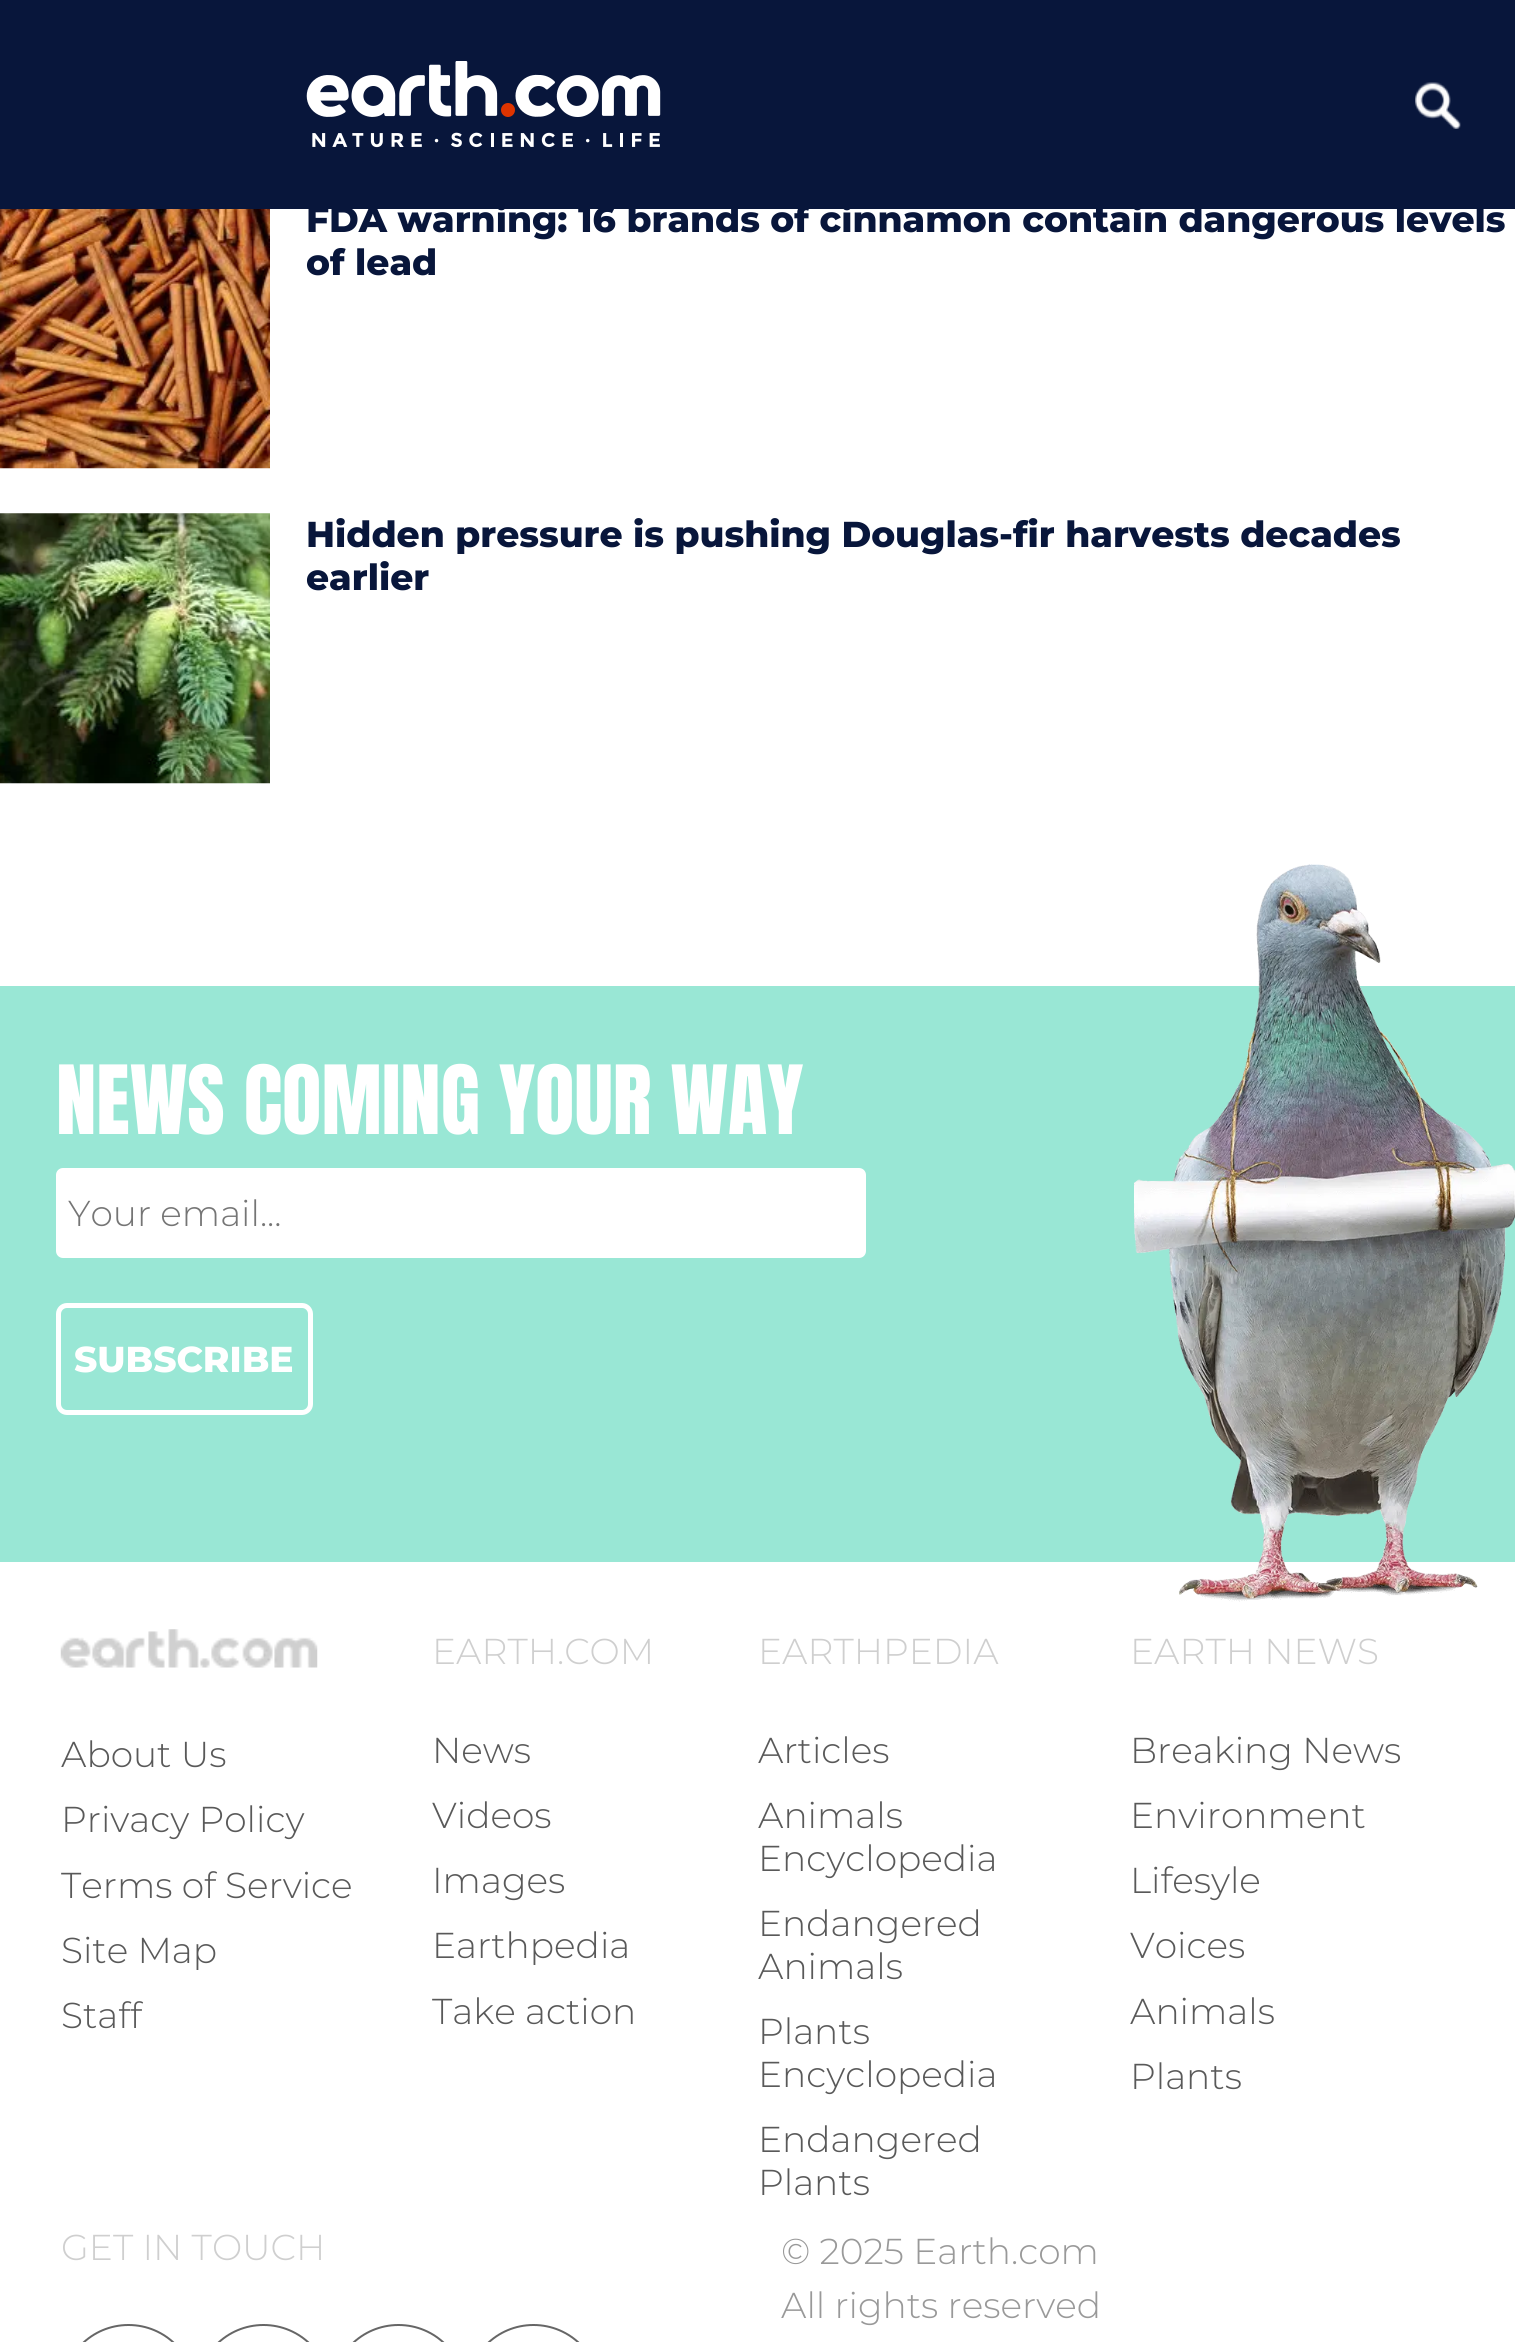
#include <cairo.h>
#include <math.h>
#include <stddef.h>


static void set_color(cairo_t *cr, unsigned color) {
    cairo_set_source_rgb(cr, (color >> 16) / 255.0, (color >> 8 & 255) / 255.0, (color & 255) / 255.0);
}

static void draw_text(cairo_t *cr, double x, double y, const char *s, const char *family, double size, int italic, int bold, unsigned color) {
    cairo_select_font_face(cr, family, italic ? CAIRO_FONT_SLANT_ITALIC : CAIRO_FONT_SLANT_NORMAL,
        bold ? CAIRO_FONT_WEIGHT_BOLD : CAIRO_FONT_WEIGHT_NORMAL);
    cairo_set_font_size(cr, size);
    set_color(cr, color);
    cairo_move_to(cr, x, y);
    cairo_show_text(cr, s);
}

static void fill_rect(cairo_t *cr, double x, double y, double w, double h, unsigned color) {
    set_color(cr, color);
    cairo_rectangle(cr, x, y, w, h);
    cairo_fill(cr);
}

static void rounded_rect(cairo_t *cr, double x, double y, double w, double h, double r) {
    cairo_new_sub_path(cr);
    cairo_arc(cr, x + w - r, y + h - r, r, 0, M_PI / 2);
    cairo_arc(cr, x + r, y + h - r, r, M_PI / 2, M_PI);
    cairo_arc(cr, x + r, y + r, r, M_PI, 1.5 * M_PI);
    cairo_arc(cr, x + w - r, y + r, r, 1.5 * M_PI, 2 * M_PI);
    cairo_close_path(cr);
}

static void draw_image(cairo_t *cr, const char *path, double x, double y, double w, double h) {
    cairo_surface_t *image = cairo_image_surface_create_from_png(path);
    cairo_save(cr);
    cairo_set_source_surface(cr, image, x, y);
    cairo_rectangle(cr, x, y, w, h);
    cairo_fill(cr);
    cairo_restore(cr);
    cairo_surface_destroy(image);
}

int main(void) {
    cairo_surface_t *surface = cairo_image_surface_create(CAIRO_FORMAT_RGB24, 1515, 2342);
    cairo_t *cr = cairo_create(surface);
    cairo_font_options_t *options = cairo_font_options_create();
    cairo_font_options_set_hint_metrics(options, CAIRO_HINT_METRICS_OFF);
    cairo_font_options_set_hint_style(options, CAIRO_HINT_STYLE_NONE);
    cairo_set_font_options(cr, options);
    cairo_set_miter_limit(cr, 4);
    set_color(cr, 0xFFFFFF);
    cairo_paint(cr);
    fill_rect(cr, 0, 0, 1515, 209, 0x08163B);
    draw_image(cr, "assets/img1.png", 306, 61, 355, 87);
    draw_image(cr, "assets/img2.png", 1415, 82, 46, 47);
    draw_image(cr, "assets/img3.png", 0, 209, 270, 260);
    draw_text(cr, 306, 232, "FDA warning: 16 brands of cinnamon contain dangerous levels", "Montserrat ExtraBold", 36, 0, 0, 0x08163B);
    draw_text(cr, 306, 275, "of lead", "Montserrat ExtraBold", 36, 0, 0, 0x08163B);
    draw_image(cr, "assets/img4.png", 0, 513, 270, 271);
    draw_text(cr, 306, 547, "Hidden pressure is pushing Douglas-fir harvests decades", "Montserrat ExtraBold", 36, 0, 0, 0x08163B);
    draw_text(cr, 306, 590, "earlier", "Montserrat ExtraBold", 36, 0, 0, 0x08163B);
    fill_rect(cr, 0, 986, 1515, 576, 0x99E7D5);
    draw_text(cr, 56, 1134, "NEWS COMING YOUR WAY", "Anton", 81, 0, 0, 0xFFFFFF);
    draw_image(cr, "assets/img5.png", 1134, 864, 381, 738);
    rounded_rect(cr, 56, 1168, 810, 90, 7);
    cairo_fill(cr);
    draw_text(cr, 68, 1226, "Your email...", "Montserrat Light", 36, 0, 0, 0x757575);
    rounded_rect(cr, 58.5, 1305.5, 252, 107, 8.5);
    set_color(cr, 0xFFFFFF);
    cairo_set_line_width(cr, 5);
    cairo_stroke(cr);
    draw_text(cr, 74, 1372, "SUBSCRIBE", "Montserrat ExtraBold", 36, 0, 0, 0xFFFFFF);
    draw_image(cr, "assets/img6.png", 60, 1629, 258, 39);
    draw_text(cr, 61, 1767, "About Us", "Montserrat Light", 36, 0, 0, 0x595959);
    draw_text(cr, 61, 1832, "Privacy Policy", "Montserrat Light", 36, 0, 0, 0x595959);
    draw_text(cr, 61, 1898, "Terms of Service", "Montserrat Light", 36, 0, 0, 0x595959);
    draw_text(cr, 61, 1963, "Site Map", "Montserrat Light", 36, 0, 0, 0x595959);
    draw_text(cr, 61, 2028, "Staff", "Montserrat Light", 36, 0, 0, 0x595959);
    draw_text(cr, 432, 1664, "EARTH.COM", "Montserrat Light", 36, 0, 0, 0xCFCFCF);
    draw_text(cr, 432, 1763, "News", "Montserrat Light", 36, 0, 0, 0x595959);
    draw_text(cr, 432, 1828, "Videos", "Montserrat Light", 36, 0, 0, 0x595959);
    draw_text(cr, 432, 1893, "Images", "Montserrat Light", 36, 0, 0, 0x595959);
    draw_text(cr, 432, 1958, "Earthpedia", "Montserrat Light", 36, 0, 0, 0x595959);
    draw_text(cr, 432, 2024, "Take action", "Montserrat Light", 36, 0, 0, 0x595959);
    draw_text(cr, 758, 1664, "EARTHPEDIA", "Montserrat Light", 36, 0, 0, 0xCFCFCF);
    draw_text(cr, 758, 1763, "Articles", "Montserrat Light", 36, 0, 0, 0x595959);
    draw_text(cr, 758, 1828, "Animals", "Montserrat Light", 36, 0, 0, 0x595959);
    draw_text(cr, 758, 1871, "Encyclopedia", "Montserrat Light", 36, 0, 0, 0x595959);
    draw_text(cr, 758, 1936, "Endangered", "Montserrat Light", 36, 0, 0, 0x595959);
    draw_text(cr, 758, 1979, "Animals", "Montserrat Light", 36, 0, 0, 0x595959);
    draw_text(cr, 758, 2044, "Plants", "Montserrat Light", 36, 0, 0, 0x595959);
    draw_text(cr, 758, 2087, "Encyclopedia", "Montserrat Light", 36, 0, 0, 0x595959);
    draw_text(cr, 758, 2152, "Endangered", "Montserrat Light", 36, 0, 0, 0x595959);
    draw_text(cr, 758, 2195, "Plants", "Montserrat Light", 36, 0, 0, 0x595959);
    draw_text(cr, 1130, 1664, "EARTH NEWS", "Montserrat Light", 36, 0, 0, 0xCFCFCF);
    draw_text(cr, 1130, 1763, "Breaking News", "Montserrat Light", 36, 0, 0, 0x595959);
    draw_text(cr, 1130, 1828, "Environment", "Montserrat Light", 36, 0, 0, 0x595959);
    draw_text(cr, 1130, 1893, "Lifesyle", "Montserrat Light", 36, 0, 0, 0x595959);
    draw_text(cr, 1130, 1958, "Voices", "Montserrat Light", 36, 0, 0, 0x595959);
    draw_text(cr, 1130, 2024, "Animals", "Montserrat Light", 36, 0, 0, 0x595959);
    draw_text(cr, 1130, 2089, "Plants", "Montserrat Light", 36, 0, 0, 0x595959);
    draw_text(cr, 61, 2260, "GET IN TOUCH", "Montserrat Light", 36, 0, 0, 0xCFCFCF);
    rounded_rect(cr, 62, 2325, 133, 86, 66.5);
    set_color(cr, 0x666666);
    cairo_set_line_width(cr, 2);
    cairo_stroke(cr);
    rounded_rect(cr, 197, 2325, 133, 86, 66.5);
    cairo_stroke(cr);
    rounded_rect(cr, 332, 2325, 133, 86, 66.5);
    cairo_stroke(cr);
    rounded_rect(cr, 467, 2325, 133, 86, 66.5);
    cairo_stroke(cr);
    draw_text(cr, 781, 2264, "© 2025 Earth.com", "Montserrat Light", 36, 0, 0, 0x999999);
    draw_text(cr, 781, 2318, "All rights reserved", "Montserrat Light", 36, 0, 0, 0x999999);
    cairo_surface_write_to_png(surface, "output.png");
    cairo_font_options_destroy(options);
    cairo_destroy(cr);
    cairo_surface_destroy(surface);
    return 0;
}
